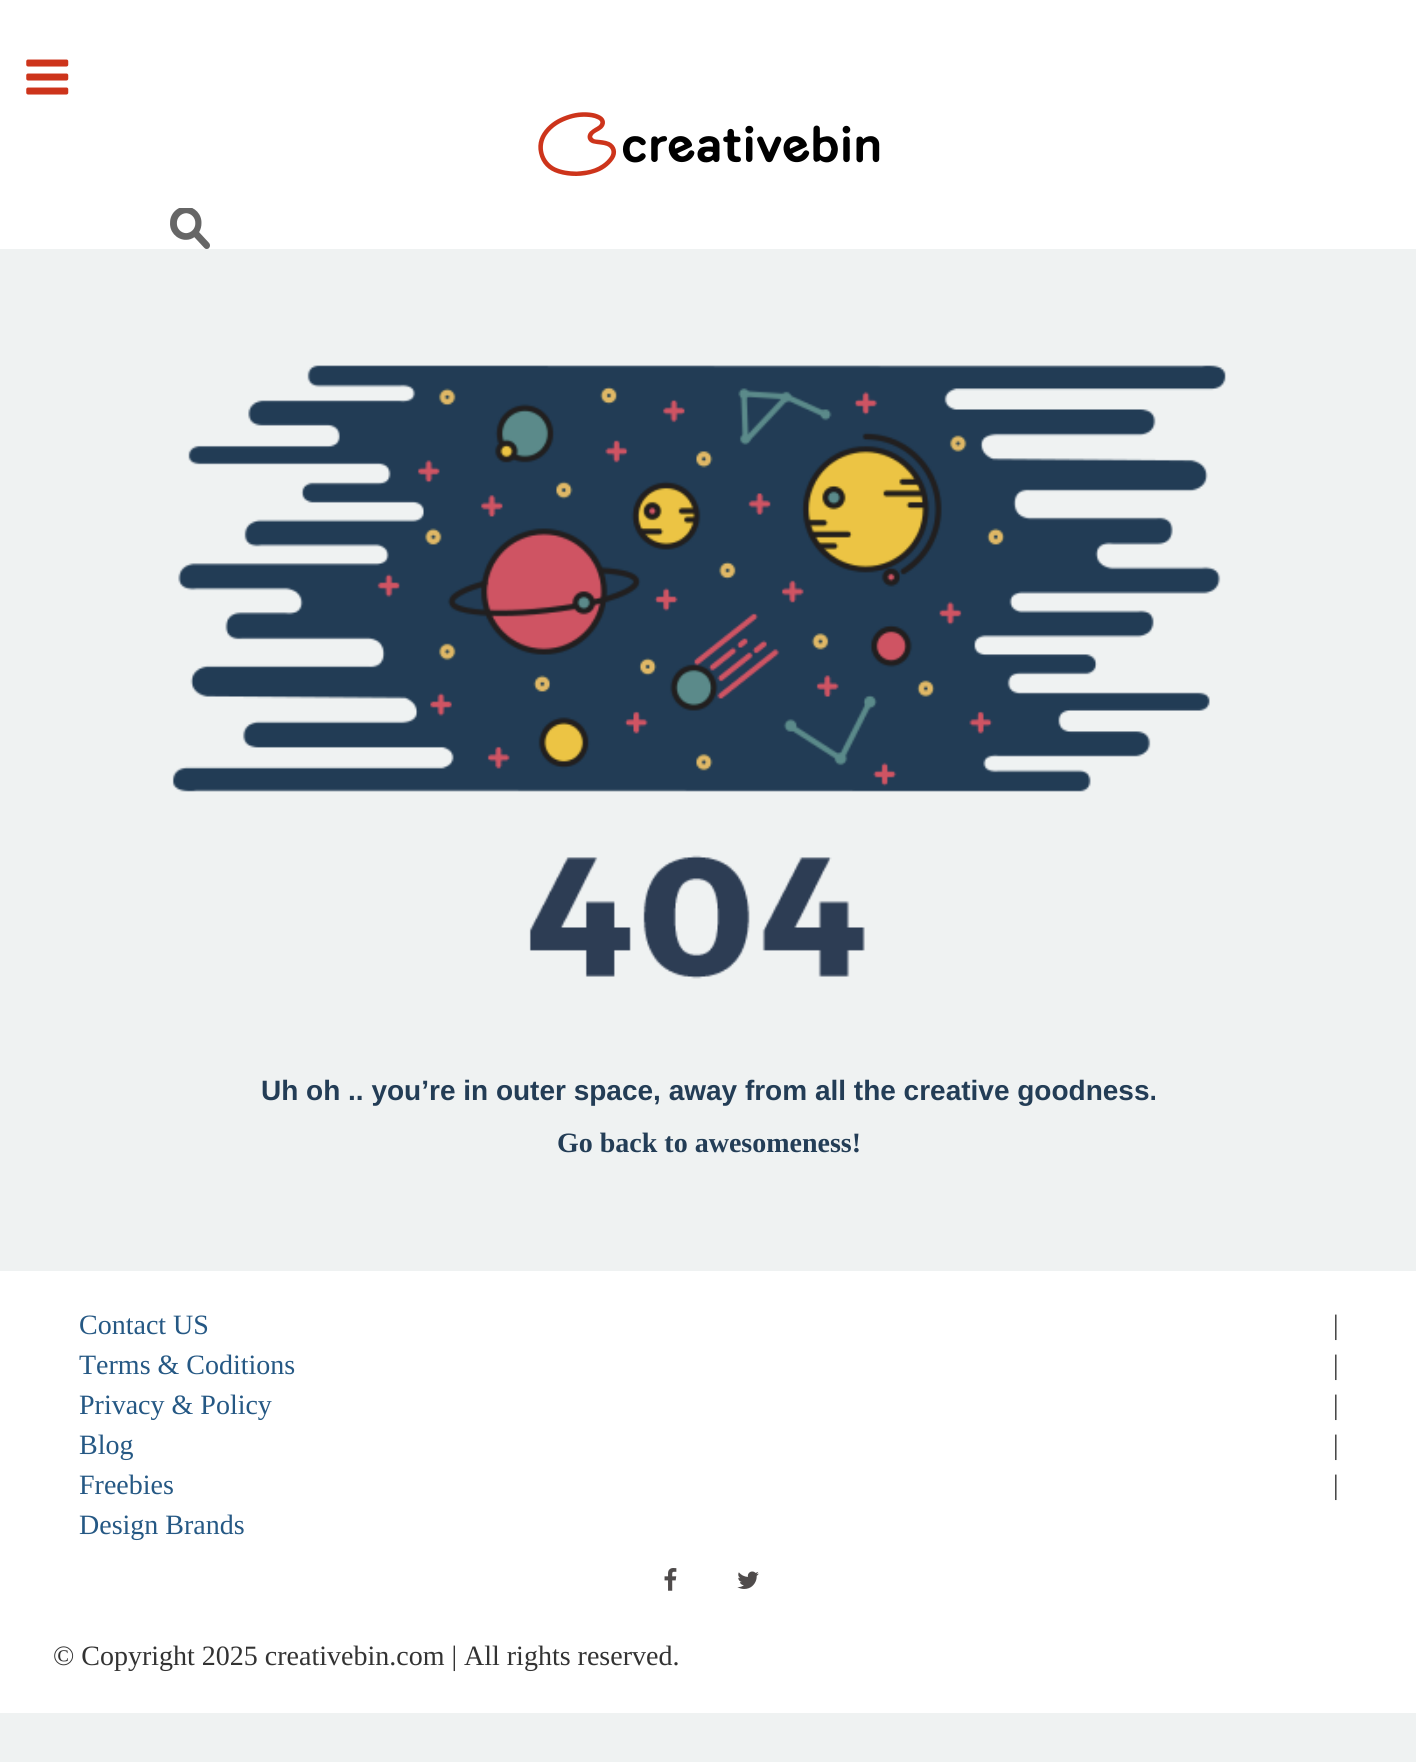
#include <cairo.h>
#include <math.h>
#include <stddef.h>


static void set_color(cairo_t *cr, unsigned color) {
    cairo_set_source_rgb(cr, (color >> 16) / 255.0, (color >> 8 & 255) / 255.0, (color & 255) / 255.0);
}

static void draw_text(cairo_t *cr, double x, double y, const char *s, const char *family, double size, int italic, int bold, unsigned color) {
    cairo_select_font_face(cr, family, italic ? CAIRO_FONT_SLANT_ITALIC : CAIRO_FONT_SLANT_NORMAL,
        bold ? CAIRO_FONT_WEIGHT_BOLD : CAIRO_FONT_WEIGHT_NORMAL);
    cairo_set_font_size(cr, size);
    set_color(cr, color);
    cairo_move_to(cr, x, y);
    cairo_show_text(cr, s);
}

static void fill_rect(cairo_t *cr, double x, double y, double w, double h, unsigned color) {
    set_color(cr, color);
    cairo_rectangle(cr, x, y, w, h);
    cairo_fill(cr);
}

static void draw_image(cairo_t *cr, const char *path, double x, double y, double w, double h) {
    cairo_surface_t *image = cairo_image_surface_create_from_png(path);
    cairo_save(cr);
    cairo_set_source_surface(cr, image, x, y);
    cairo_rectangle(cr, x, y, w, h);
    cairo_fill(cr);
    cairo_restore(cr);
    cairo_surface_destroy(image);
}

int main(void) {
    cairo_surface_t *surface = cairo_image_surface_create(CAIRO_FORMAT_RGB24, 1416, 1762);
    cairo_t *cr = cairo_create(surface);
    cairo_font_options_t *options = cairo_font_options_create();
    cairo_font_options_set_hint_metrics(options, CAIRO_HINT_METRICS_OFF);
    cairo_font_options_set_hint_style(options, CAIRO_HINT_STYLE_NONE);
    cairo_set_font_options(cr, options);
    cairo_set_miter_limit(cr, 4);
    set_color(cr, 0xEFF2F2);
    cairo_paint(cr);
    fill_rect(cr, 0, 0, 1416, 249, 0xFFFFFF);
    draw_image(cr, "assets/img1.png", 26, 59, 43, 36);
    draw_image(cr, "assets/img2.png", 538, 112, 342, 64);
    draw_image(cr, "assets/img3.png", 170, 208, 40, 41);
    draw_image(cr, "assets/img4.png", 172, 365, 1054, 614);
    draw_text(cr, 261, 1100, "Uh oh .. you’re in outer space, away from all the creative goodness.", "Liberation Sans", 28, 0, 1, 0x233D56);
    draw_text(cr, 557, 1152, "Go back to awesomeness!", "Liberation Serif", 28, 0, 1, 0x233D56);
    fill_rect(cr, 0, 1271, 1416, 442, 0xFFFFFF);
    draw_text(cr, 79, 1334, "Contact US", "Liberation Serif", 28, 0, 0, 0x255884);
    draw_text(cr, 1333, 1334, "|", "Liberation Serif", 28, 0, 0, 0x333333);
    draw_text(cr, 79, 1374, "Terms & Coditions", "Liberation Serif", 28, 0, 0, 0x255884);
    draw_text(cr, 1333, 1374, "|", "Liberation Serif", 28, 0, 0, 0x333333);
    draw_text(cr, 79, 1414, "Privacy & Policy", "Liberation Serif", 28, 0, 0, 0x255884);
    draw_text(cr, 1333, 1414, "|", "Liberation Serif", 28, 0, 0, 0x333333);
    draw_text(cr, 79, 1454, "Blog", "Liberation Serif", 28, 0, 0, 0x255884);
    draw_text(cr, 1333, 1454, "|", "Liberation Serif", 28, 0, 0, 0x333333);
    draw_text(cr, 79, 1494, "Freebies", "Liberation Serif", 28, 0, 0, 0x255884);
    draw_text(cr, 1333, 1494, "|", "Liberation Serif", 28, 0, 0, 0x333333);
    draw_text(cr, 79, 1534, "Design Brands", "Liberation Serif", 28, 0, 0, 0x255884);
    draw_image(cr, "assets/img5.png", 664, 1568, 13, 23);
    draw_image(cr, "assets/img6.png", 737, 1571, 22, 18);
    draw_text(cr, 53, 1665, "© Copyright 2025 creativebin.com | All rights reserved.", "Liberation Serif", 28, 0, 0, 0x333333);
    cairo_surface_write_to_png(surface, "output.png");
    cairo_font_options_destroy(options);
    cairo_destroy(cr);
    cairo_surface_destroy(surface);
    return 0;
}
